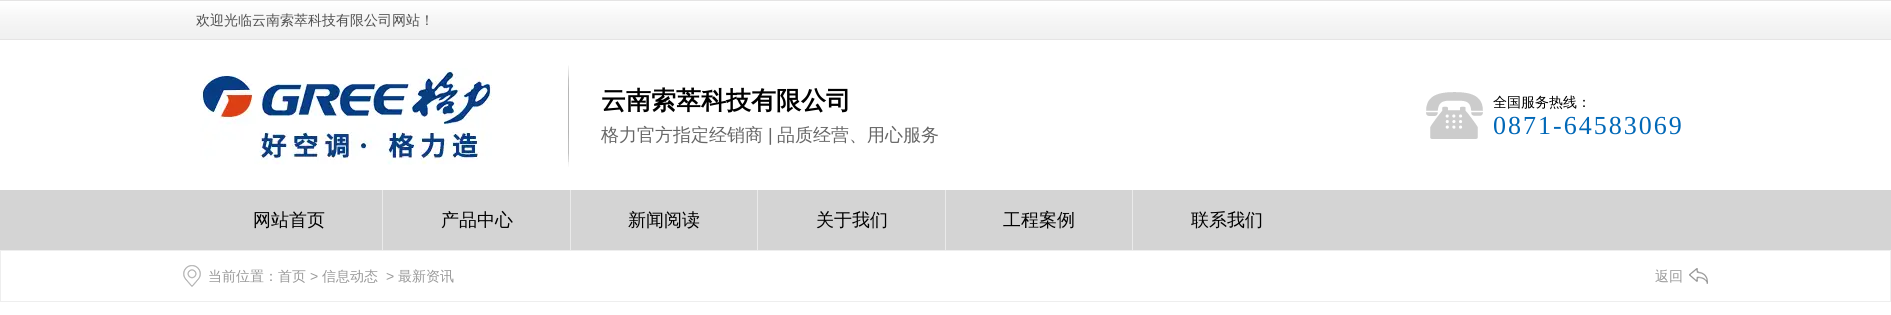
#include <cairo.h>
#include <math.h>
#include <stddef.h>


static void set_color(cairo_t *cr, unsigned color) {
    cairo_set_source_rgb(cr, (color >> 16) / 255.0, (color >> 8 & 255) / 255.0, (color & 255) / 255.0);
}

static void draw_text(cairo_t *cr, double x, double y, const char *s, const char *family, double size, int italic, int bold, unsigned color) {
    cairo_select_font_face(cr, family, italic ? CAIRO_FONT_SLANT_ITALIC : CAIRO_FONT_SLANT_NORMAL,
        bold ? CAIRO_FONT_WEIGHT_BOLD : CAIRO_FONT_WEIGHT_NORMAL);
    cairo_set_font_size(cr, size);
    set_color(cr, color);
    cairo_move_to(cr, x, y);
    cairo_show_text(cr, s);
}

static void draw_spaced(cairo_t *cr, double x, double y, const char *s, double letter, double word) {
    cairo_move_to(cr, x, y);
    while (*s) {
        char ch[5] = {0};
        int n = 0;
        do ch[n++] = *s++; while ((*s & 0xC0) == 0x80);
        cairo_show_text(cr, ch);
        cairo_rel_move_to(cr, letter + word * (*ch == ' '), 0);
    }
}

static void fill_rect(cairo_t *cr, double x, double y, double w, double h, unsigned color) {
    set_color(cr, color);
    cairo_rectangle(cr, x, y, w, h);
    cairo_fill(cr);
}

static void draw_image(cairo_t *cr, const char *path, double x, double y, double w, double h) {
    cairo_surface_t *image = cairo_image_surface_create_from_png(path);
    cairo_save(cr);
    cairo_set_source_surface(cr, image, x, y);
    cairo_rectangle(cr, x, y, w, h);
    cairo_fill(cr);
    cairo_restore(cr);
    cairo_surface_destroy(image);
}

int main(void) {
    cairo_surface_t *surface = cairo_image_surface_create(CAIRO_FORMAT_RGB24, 1891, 315);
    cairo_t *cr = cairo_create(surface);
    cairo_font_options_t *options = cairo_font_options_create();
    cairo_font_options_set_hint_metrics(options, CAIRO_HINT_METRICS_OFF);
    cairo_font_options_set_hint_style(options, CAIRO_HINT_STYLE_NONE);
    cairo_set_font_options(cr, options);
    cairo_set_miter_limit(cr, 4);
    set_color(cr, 0xFFFFFF);
    cairo_paint(cr);
    draw_image(cr, "assets/img1.png", 0, 0, 1891, 40);
    draw_text(cr, 196, 25, "欢迎光临云南索萃科技有限公司网站！", "WenQuanYi Zen Hei Medium", 14, 0, 0, 0x4F4F4F);
    draw_image(cr, "assets/img2.png", 568, 65, 1, 102);
    draw_image(cr, "assets/img3.png", 200, 68, 292, 97);
    draw_text(cr, 601, 109, "云南索萃科技有限公司", "WenQuanYi Zen Hei", 25, 0, 1, 0x000000);
    draw_text(cr, 601, 141, "格力官方指定经销商", "WenQuanYi Zen Hei Medium", 18, 0, 0, 0x666666);
    draw_text(cr, 768, 141, "|", "Liberation Sans", 18, 0, 0, 0x666666);
    draw_text(cr, 777, 141, "品质经营、用心服务", "WenQuanYi Zen Hei Medium", 18, 0, 0, 0x666666);
    draw_image(cr, "assets/img4.png", 1426, 92, 57, 47);
    draw_text(cr, 1493, 107, "全国服务热线：", "WenQuanYi Zen Hei Medium", 14, 0, 0, 0x000000);
    cairo_select_font_face(cr, "Liberation Serif", CAIRO_FONT_SLANT_NORMAL, CAIRO_FONT_WEIGHT_NORMAL);
    cairo_set_font_size(cr, 26);
    set_color(cr, 0x0168B7);
    draw_spaced(cr, 1493, 134, "0871-64583069", 2, 0);
    fill_rect(cr, 0, 190, 1891, 60, 0xD4D4D4);
    draw_text(cr, 253, 226, "网站首页", "WenQuanYi Zen Hei Medium", 18, 0, 0, 0x000000);
    fill_rect(cr, 382, 190, 1, 60, 0xEAEAEA);
    draw_text(cr, 441, 226, "产品中心", "WenQuanYi Zen Hei Medium", 18, 0, 0, 0x000000);
    fill_rect(cr, 570, 190, 1, 60, 0xEAEAEA);
    draw_text(cr, 628, 226, "新闻阅读", "WenQuanYi Zen Hei Medium", 18, 0, 0, 0x000000);
    fill_rect(cr, 757, 190, 1, 60, 0xEAEAEA);
    draw_text(cr, 816, 226, "关于我们", "WenQuanYi Zen Hei Medium", 18, 0, 0, 0x000000);
    fill_rect(cr, 945, 190, 1, 60, 0xEAEAEA);
    draw_text(cr, 1003, 226, "工程案例", "WenQuanYi Zen Hei Medium", 18, 0, 0, 0x000000);
    fill_rect(cr, 1132, 190, 1, 60, 0xEAEAEA);
    draw_text(cr, 1191, 226, "联系我们", "WenQuanYi Zen Hei Medium", 18, 0, 0, 0x000000);
    cairo_rectangle(cr, 0.5, 250.5, 1890, 51);
    set_color(cr, 0xEEEEEE);
    cairo_set_line_width(cr, 1);
    cairo_stroke(cr);
    draw_image(cr, "assets/img5.png", 183, 265, 18, 22);
    draw_text(cr, 208, 281, "当前位置：首页", "WenQuanYi Zen Hei Medium", 14, 0, 0, 0x999999);
    draw_text(cr, 310, 281, ">", "Liberation Sans", 14, 0, 0, 0x999999);
    draw_text(cr, 322, 281, "信息动态", "WenQuanYi Zen Hei Medium", 14, 0, 0, 0x999999);
    draw_text(cr, 386, 281, ">", "Liberation Sans", 14, 0, 0, 0x999999);
    draw_text(cr, 398, 281, "最新资讯", "WenQuanYi Zen Hei Medium", 14, 0, 0, 0x999999);
    draw_image(cr, "assets/img6.png", 1689, 268, 19, 16);
    draw_text(cr, 1655, 281, "返回", "WenQuanYi Zen Hei Medium", 14, 0, 0, 0x999999);
    cairo_surface_write_to_png(surface, "output.png");
    cairo_font_options_destroy(options);
    cairo_destroy(cr);
    cairo_surface_destroy(surface);
    return 0;
}
